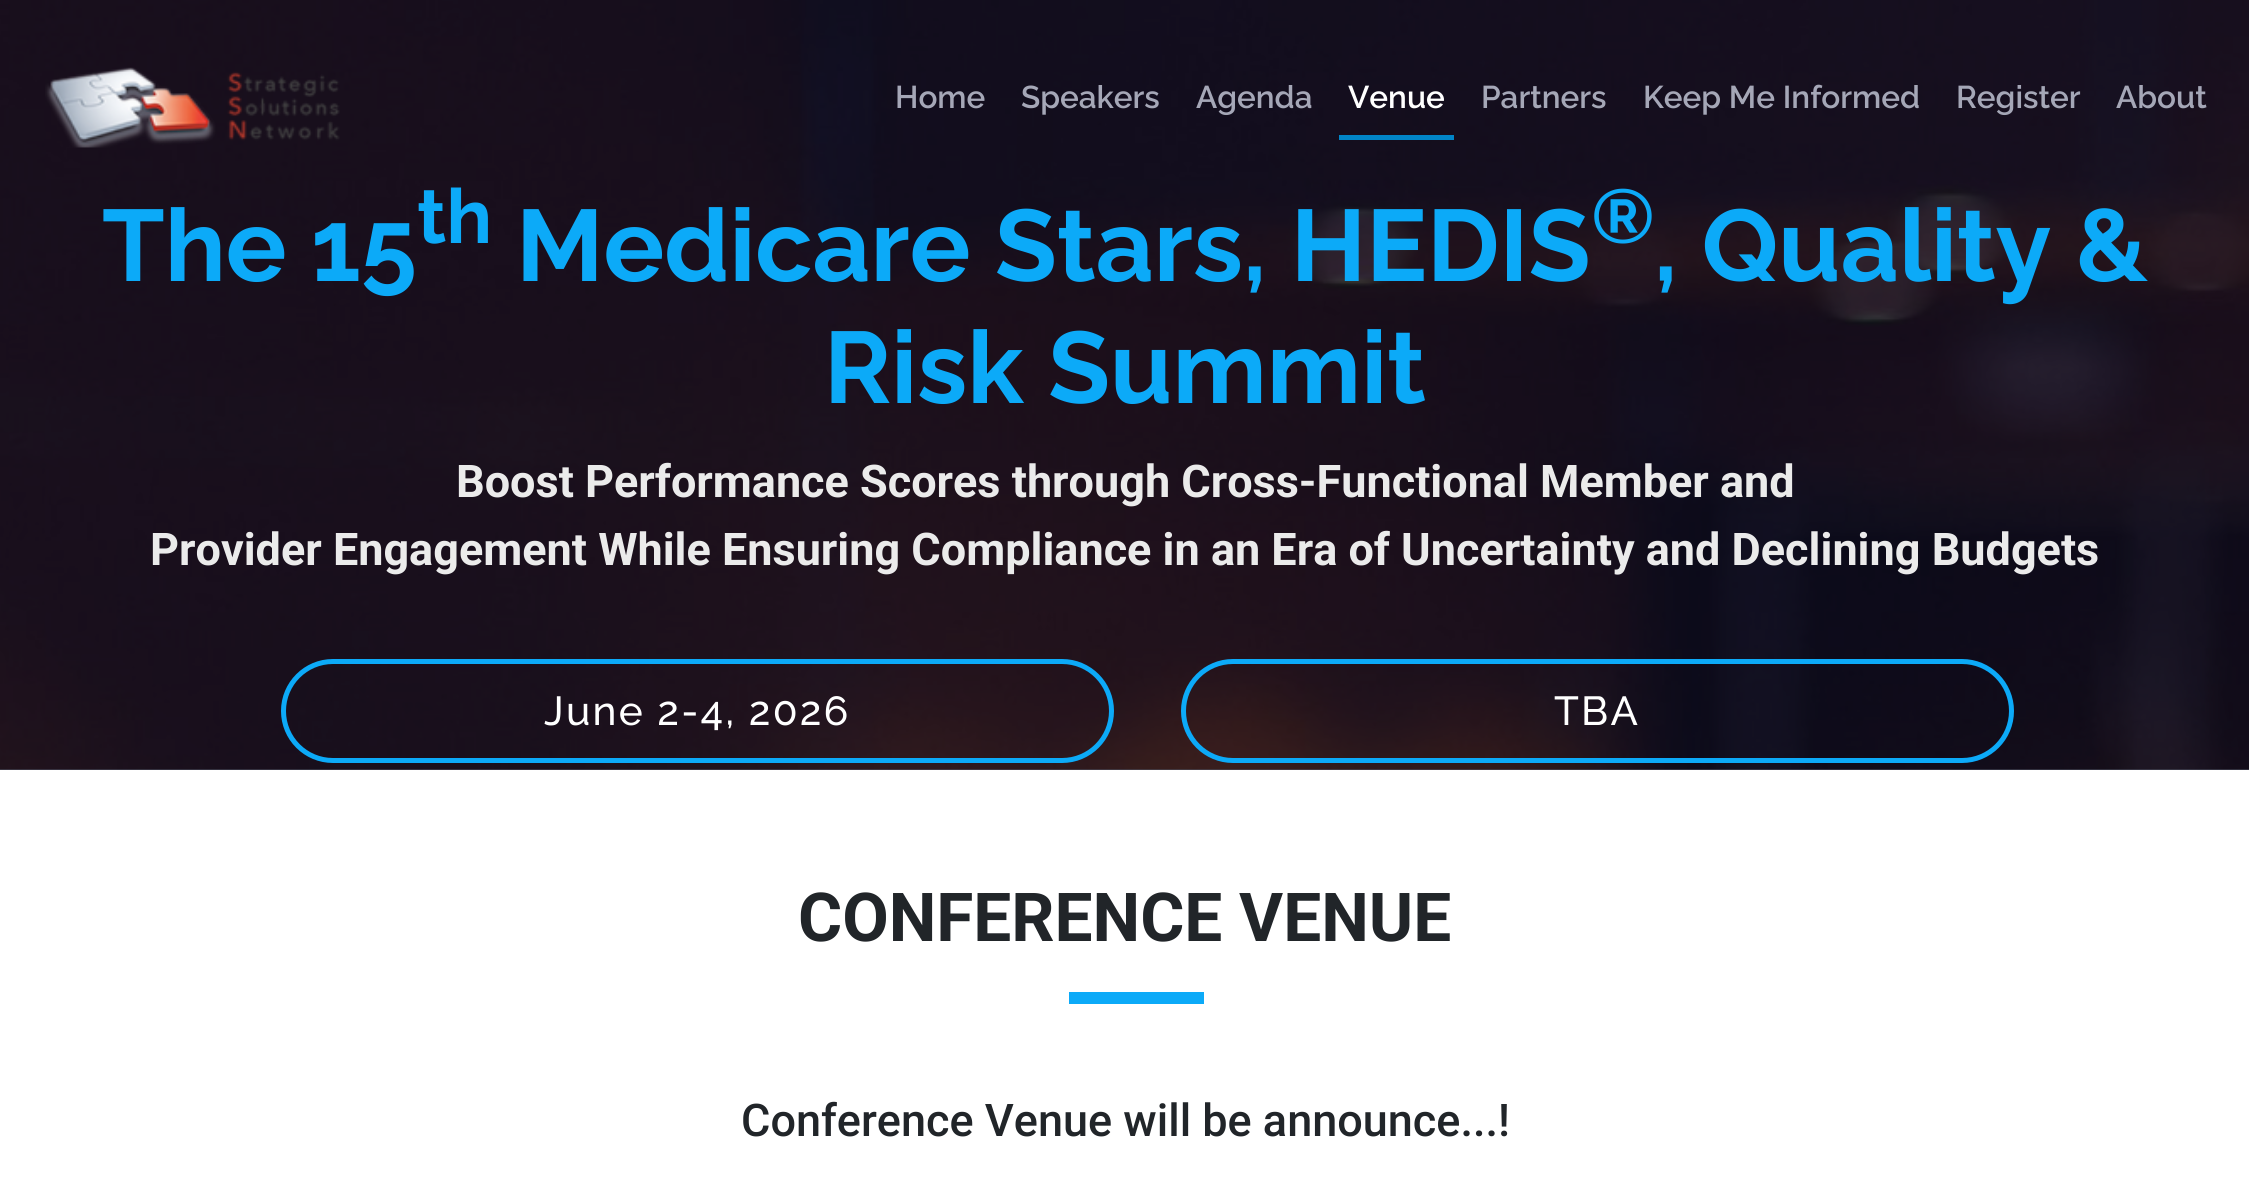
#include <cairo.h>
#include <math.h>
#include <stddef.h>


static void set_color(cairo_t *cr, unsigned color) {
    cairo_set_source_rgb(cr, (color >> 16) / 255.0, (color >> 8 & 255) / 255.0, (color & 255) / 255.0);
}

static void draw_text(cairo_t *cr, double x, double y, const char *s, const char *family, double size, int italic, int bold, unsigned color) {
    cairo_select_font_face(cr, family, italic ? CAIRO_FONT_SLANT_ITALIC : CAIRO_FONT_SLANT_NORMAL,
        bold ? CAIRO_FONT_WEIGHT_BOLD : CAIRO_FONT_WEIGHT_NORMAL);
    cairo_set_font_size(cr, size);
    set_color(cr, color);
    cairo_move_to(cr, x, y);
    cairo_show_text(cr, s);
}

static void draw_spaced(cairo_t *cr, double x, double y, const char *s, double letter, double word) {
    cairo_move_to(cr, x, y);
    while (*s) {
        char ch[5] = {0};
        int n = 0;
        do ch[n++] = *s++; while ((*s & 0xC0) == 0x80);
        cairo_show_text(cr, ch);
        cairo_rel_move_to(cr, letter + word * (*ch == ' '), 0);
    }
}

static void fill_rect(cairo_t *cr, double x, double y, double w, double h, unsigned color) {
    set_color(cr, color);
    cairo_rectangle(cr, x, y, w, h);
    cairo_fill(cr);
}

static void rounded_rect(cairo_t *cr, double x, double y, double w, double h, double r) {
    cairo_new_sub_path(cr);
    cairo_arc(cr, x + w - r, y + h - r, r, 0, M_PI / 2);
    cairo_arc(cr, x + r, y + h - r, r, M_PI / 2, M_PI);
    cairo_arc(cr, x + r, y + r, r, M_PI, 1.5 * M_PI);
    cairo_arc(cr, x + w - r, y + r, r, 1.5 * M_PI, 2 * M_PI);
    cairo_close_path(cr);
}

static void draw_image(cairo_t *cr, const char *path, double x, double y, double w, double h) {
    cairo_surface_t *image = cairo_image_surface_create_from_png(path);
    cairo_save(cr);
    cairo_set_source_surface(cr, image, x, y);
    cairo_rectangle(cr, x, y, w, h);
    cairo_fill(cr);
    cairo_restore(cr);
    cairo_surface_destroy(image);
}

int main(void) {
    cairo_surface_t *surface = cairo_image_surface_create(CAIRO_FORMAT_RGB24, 2249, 1196);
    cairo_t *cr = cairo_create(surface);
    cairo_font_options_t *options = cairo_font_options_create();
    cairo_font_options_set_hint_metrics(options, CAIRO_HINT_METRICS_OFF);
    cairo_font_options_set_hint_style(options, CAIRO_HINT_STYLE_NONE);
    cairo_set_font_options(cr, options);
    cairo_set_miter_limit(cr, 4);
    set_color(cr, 0xFFFFFF);
    cairo_paint(cr);
    fill_rect(cr, 0, 769, 2249, 1, 0x4E5262);
    draw_image(cr, "assets/img2.png", 0, 0, 2249, 770);
    draw_image(cr, "assets/img1.png", 45, 67, 295, 81);
    draw_text(cr, 895, 108, "Home", "Raleway SemiBold", 31.5, 0, 0, 0xA5A7B7);
    draw_text(cr, 1021, 108, "Speakers", "Raleway SemiBold", 31.5, 0, 0, 0xA5A7B7);
    draw_text(cr, 1196, 108, "Agenda", "Raleway SemiBold", 31.5, 0, 0, 0xA5A7B7);
    draw_text(cr, 1348, 108, "Venue", "Raleway SemiBold", 31.5, 0, 0, 0xFFFFFF);
    fill_rect(cr, 1339, 135, 115, 5, 0x0185C7);
    draw_text(cr, 1481, 108, "Partners", "Raleway SemiBold", 31.5, 0, 0, 0xA5A7B7);
    draw_text(cr, 1643, 108, "Keep Me Informed", "Raleway SemiBold", 31.5, 0, 0, 0xA5A7B7);
    draw_text(cr, 1956, 108, "Register", "Raleway SemiBold", 31.5, 0, 0, 0xA5A7B7);
    draw_text(cr, 2116, 108, "About", "Raleway SemiBold", 31.5, 0, 0, 0xA5A7B7);
    draw_text(cr, 102, 281, "The 15", "Raleway", 101.25, 0, 1, 0x0CAAF8);
    draw_text(cr, 417, 243, "th", "Raleway", 76, 0, 1, 0x0CAAF8);
    draw_text(cr, 516, 281, "Medicare Stars, HEDIS", "Raleway", 101.25, 0, 1, 0x0CAAF8);
    draw_text(cr, 1591, 243, "®", "Raleway", 76, 0, 1, 0x0CAAF8);
    draw_text(cr, 1654, 281, ", Quality &", "Raleway", 101.25, 0, 1, 0x0CAAF8);
    draw_text(cr, 824, 403, "Risk Summit", "Raleway", 101.25, 0, 1, 0x0CAAF8);
    draw_text(cr, 456, 497, "Boost Performance Scores through Cross-Functional Member and", "Roboto", 45, 0, 1, 0xEBEBEB);
    draw_text(cr, 150, 565, "Provider Engagement While Ensuring Compliance in an Era of Uncertainty and Declining Budgets", "Roboto", 45, 0, 1, 0xEBEBEB);
    rounded_rect(cr, 283.5, 661.5, 828, 99, 49.5);
    set_color(cr, 0x0CAAF8);
    cairo_set_line_width(cr, 5);
    cairo_stroke(cr);
    cairo_select_font_face(cr, "Raleway Medium", CAIRO_FONT_SLANT_NORMAL, CAIRO_FONT_WEIGHT_NORMAL);
    cairo_set_font_size(cr, 40.5);
    set_color(cr, 0xFFFFFF);
    draw_spaced(cr, 544, 725, "June 2-4, 2026", 2.25, 0);
    rounded_rect(cr, 1183.5, 661.5, 828, 99, 49.5);
    set_color(cr, 0x0CAAF8);
    cairo_stroke(cr);
    set_color(cr, 0xFFFFFF);
    draw_spaced(cr, 1554, 725, "TBA", 2.25, 0);
    draw_text(cr, 798, 941, "CONFERENCE VENUE", "Roboto", 67.5, 0, 1, 0x212529);
    fill_rect(cr, 1069, 992, 135, 12, 0x0CAAF8);
    draw_text(cr, 741, 1136, "Conference Venue will be announce...!", "Roboto Medium", 45, 0, 0, 0x212529);
    cairo_surface_write_to_png(surface, "output.png");
    cairo_font_options_destroy(options);
    cairo_destroy(cr);
    cairo_surface_destroy(surface);
    return 0;
}
